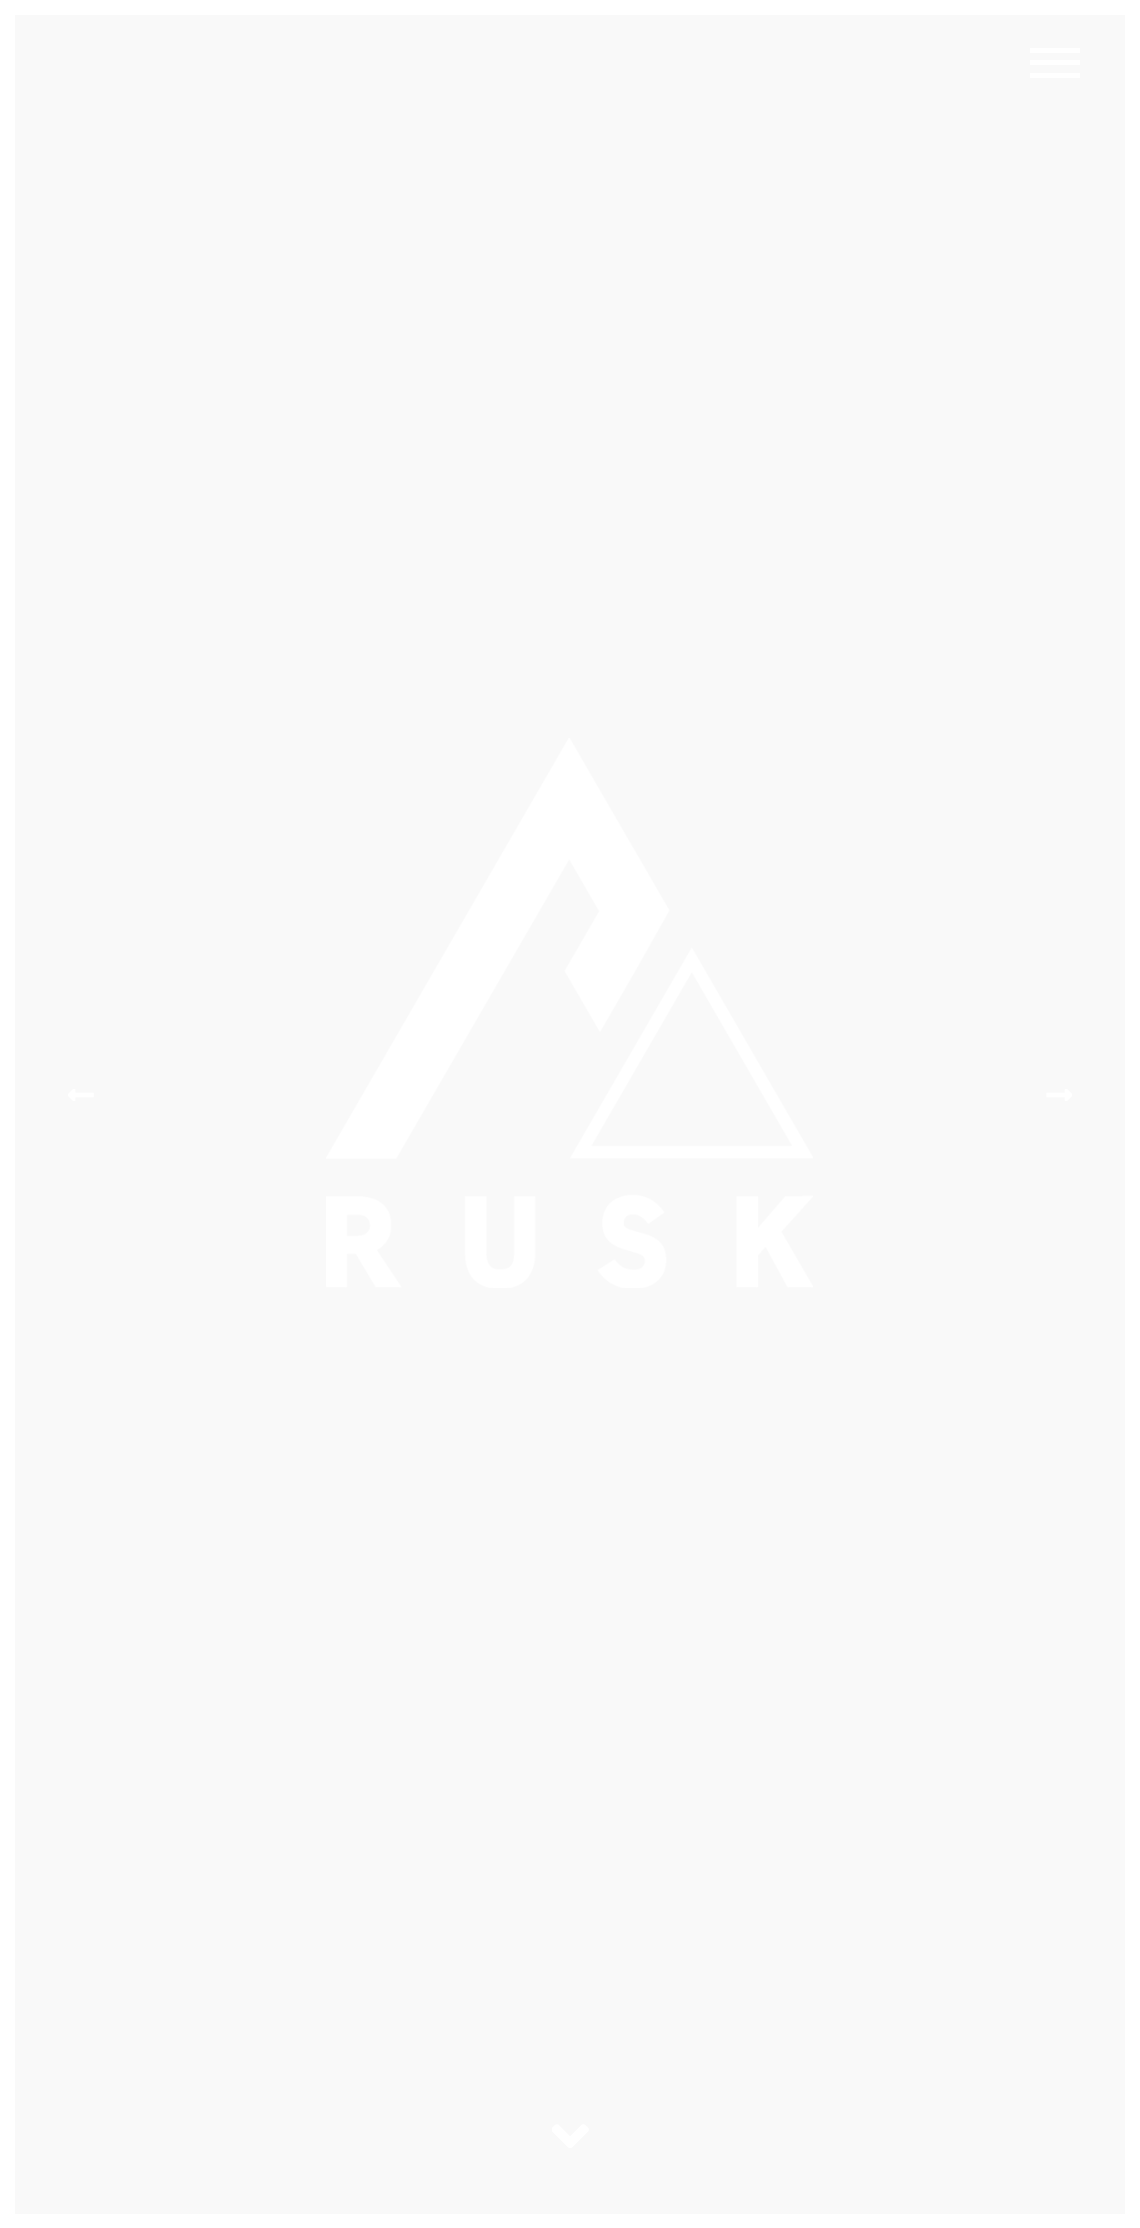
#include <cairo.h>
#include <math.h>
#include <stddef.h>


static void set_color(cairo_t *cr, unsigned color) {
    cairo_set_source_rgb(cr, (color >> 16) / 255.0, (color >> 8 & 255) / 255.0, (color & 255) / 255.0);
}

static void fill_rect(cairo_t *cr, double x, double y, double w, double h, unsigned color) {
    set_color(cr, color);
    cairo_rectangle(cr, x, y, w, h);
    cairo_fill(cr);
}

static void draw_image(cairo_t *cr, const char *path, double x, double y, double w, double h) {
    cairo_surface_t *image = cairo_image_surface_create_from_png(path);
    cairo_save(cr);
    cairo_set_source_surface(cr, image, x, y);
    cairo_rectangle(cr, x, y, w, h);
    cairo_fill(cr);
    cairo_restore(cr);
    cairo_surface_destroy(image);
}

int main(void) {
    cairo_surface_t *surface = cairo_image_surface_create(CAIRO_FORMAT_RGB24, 1140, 2228);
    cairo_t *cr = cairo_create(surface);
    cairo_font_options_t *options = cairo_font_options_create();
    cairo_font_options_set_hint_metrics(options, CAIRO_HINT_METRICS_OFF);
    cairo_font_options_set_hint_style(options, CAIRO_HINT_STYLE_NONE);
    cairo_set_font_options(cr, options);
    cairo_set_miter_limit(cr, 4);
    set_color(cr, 0xF9F9F9);
    cairo_paint(cr);
    fill_rect(cr, 0, 0, 15, 2228, 0xFFFFFF);
    fill_rect(cr, 15, 0, 1110, 15, 0xFFFFFF);
    fill_rect(cr, 1125, 0, 15, 2214, 0xFFFFFF);
    fill_rect(cr, 15, 2214, 1125, 14, 0xFFFFFF);
    fill_rect(cr, 1030, 60, 50, 5, 0xFFFFFF);
    fill_rect(cr, 1030, 48, 50, 5, 0xFFFFFF);
    fill_rect(cr, 1030, 73, 50, 5, 0xFFFFFF);
    draw_image(cr, "assets/img1.png", 68, 1089, 26, 12);
    draw_image(cr, "assets/img2.png", 326, 738, 487, 550);
    draw_image(cr, "assets/img3.png", 1046, 1089, 26, 12);
    draw_image(cr, "assets/img4.png", 552, 2124, 37, 24);
    cairo_surface_write_to_png(surface, "output.png");
    cairo_font_options_destroy(options);
    cairo_destroy(cr);
    cairo_surface_destroy(surface);
    return 0;
}
